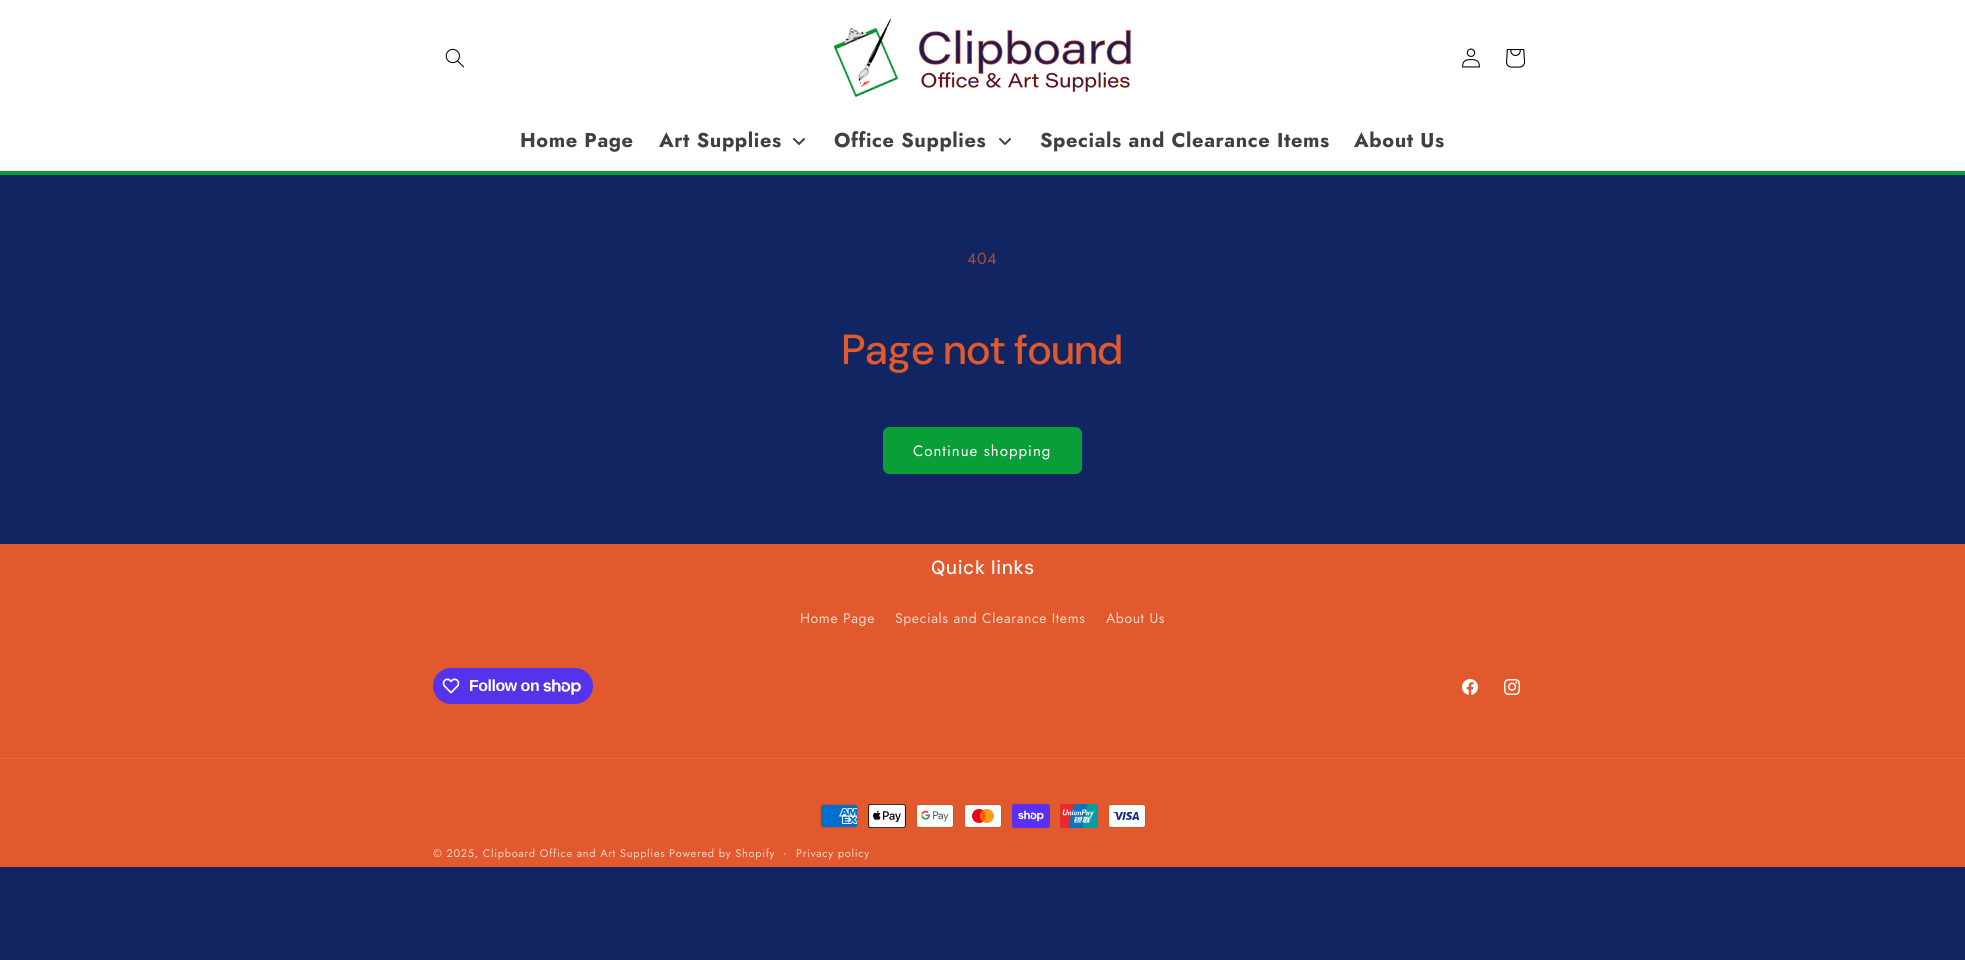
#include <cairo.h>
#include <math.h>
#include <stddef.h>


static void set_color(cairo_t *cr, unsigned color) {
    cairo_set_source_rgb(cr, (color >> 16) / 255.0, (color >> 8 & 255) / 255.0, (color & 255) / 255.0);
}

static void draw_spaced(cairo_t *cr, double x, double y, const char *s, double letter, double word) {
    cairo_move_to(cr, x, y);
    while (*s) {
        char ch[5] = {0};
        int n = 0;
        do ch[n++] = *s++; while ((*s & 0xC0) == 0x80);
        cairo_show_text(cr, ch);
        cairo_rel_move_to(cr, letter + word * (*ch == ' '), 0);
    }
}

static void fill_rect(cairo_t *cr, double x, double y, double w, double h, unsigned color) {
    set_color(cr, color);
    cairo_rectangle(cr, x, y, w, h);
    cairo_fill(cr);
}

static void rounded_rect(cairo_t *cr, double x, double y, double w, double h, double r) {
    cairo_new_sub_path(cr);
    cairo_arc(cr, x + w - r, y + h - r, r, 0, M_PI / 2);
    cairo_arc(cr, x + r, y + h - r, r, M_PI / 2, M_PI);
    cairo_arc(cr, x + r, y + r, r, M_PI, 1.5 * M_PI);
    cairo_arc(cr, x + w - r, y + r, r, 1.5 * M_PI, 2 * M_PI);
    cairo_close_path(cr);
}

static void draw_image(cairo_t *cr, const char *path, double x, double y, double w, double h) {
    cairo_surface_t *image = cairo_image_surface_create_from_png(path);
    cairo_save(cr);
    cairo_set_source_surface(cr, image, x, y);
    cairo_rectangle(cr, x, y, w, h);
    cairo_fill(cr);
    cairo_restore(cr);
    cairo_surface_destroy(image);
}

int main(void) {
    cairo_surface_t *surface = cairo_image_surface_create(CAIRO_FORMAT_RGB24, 1965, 960);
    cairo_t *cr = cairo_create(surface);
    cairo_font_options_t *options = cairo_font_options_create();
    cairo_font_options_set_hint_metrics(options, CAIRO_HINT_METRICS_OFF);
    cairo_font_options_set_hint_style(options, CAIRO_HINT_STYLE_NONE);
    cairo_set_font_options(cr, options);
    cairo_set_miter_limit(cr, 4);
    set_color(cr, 0x102562);
    cairo_paint(cr);
    fill_rect(cr, 0, 0, 1965, 171, 0xFFFFFF);
    draw_image(cr, "assets/img1.png", 445, 48, 19, 20);
    draw_image(cr, "assets/img2.png", 833, 18, 298, 79);
    draw_image(cr, "assets/img3.png", 1462, 48, 18, 20);
    draw_image(cr, "assets/img4.png", 1506, 49, 20, 19);
    cairo_select_font_face(cr, "Jost", CAIRO_FONT_SLANT_NORMAL, CAIRO_FONT_WEIGHT_BOLD);
    cairo_set_font_size(cr, 20);
    set_color(cr, 0x404040);
    draw_spaced(cr, 520, 147, "Home Page", 0.6, 0);
    draw_spaced(cr, 659, 147, "Art Supplies", 0.6, 0);
    draw_image(cr, "assets/img5.png", 793, 138, 12, 7);
    draw_spaced(cr, 834, 147, "Office Supplies", 0.6, 0);
    draw_image(cr, "assets/img5.png", 999, 138, 12, 7);
    draw_spaced(cr, 1040, 147, "Specials and Clearance Items", 0.6, 0);
    draw_spaced(cr, 1354, 147, "About Us", 0.6, 0);
    fill_rect(cr, 0, 171, 1965, 4, 0x0A9E39);
    cairo_select_font_face(cr, "Jost", CAIRO_FONT_SLANT_NORMAL, CAIRO_FONT_WEIGHT_NORMAL);
    cairo_set_font_size(cr, 16);
    set_color(cr, 0xAD4C3A);
    draw_spaced(cr, 967, 264, "404", 0.6, 0);
    cairo_select_font_face(cr, "DM Sans Medium", CAIRO_FONT_SLANT_NORMAL, CAIRO_FONT_WEIGHT_NORMAL);
    cairo_set_font_size(cr, 42);
    set_color(cr, 0xE1592C);
    draw_spaced(cr, 842, 364, "Page not found", 0.6, 0);
    set_color(cr, 0x0A9E39);
    rounded_rect(cr, 883, 427, 199, 47, 7);
    cairo_fill(cr);
    rounded_rect(cr, 883.5, 427.5, 198, 46, 6.5);
    cairo_set_line_width(cr, 1);
    cairo_stroke(cr);
    cairo_select_font_face(cr, "Jost", CAIRO_FONT_SLANT_NORMAL, CAIRO_FONT_WEIGHT_NORMAL);
    cairo_set_font_size(cr, 15);
    set_color(cr, 0xFFFFFF);
    draw_spaced(cr, 913, 456, "Continue shopping", 1, 0);
    fill_rect(cr, 0, 544, 1965, 323, 0xE1592C);
    cairo_select_font_face(cr, "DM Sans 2 Medium", CAIRO_FONT_SLANT_NORMAL, CAIRO_FONT_WEIGHT_NORMAL);
    cairo_set_font_size(cr, 19);
    set_color(cr, 0xFFFFFF);
    draw_spaced(cr, 931, 574, "Quick links", 0.6, 0);
    cairo_select_font_face(cr, "Jost", CAIRO_FONT_SLANT_NORMAL, CAIRO_FONT_WEIGHT_NORMAL);
    cairo_set_font_size(cr, 14);
    set_color(cr, 0xF8D6CA);
    draw_spaced(cr, 800, 623, "Home Page", 0.6, 0);
    draw_spaced(cr, 895, 623, "Specials and Clearance Items", 0.6, 0);
    draw_spaced(cr, 1106, 623, "About Us", 0.6, 0);
    set_color(cr, 0x5433EB);
    rounded_rect(cr, 433, 668, 160, 36, 18);
    cairo_fill(cr);
    draw_image(cr, "assets/img6.png", 442, 678, 18, 16);
    cairo_select_font_face(cr, "Liberation Sans", CAIRO_FONT_SLANT_NORMAL, CAIRO_FONT_WEIGHT_BOLD);
    cairo_set_font_size(cr, 16);
    set_color(cr, 0xFFFFFF);
    draw_spaced(cr, 469, 691, "Follow on", -0.5, 0);
    draw_image(cr, "assets/img7.png", 543, 679, 38, 16);
    draw_image(cr, "assets/img8.png", 1462, 679, 16, 16);
    draw_image(cr, "assets/img9.png", 1504, 679, 16, 16);
    fill_rect(cr, 0, 758, 1965, 1, 0xE3663D);
    draw_image(cr, "assets/img10.png", 820, 804, 38, 24);
    draw_image(cr, "assets/img11.png", 868, 804, 38, 24);
    draw_image(cr, "assets/img12.png", 916, 804, 38, 24);
    draw_image(cr, "assets/img13.png", 964, 804, 38, 24);
    draw_image(cr, "assets/img14.png", 1012, 804, 38, 24);
    draw_image(cr, "assets/img15.png", 1060, 804, 38, 24);
    draw_image(cr, "assets/img16.png", 1108, 804, 38, 24);
    cairo_select_font_face(cr, "Jost", CAIRO_FONT_SLANT_NORMAL, CAIRO_FONT_WEIGHT_NORMAL);
    cairo_set_font_size(cr, 11);
    set_color(cr, 0xF8D6CA);
    draw_spaced(cr, 433, 857, "© 2025, Clipboard Office and Art Supplies", 0.7, 0);
    draw_spaced(cr, 669, 857, "Powered by Shopify", 0.7, 0);
    cairo_set_font_size(cr, 12);
    draw_spaced(cr, 783, 857, "·", 0.7, 0);
    cairo_set_font_size(cr, 11);
    draw_spaced(cr, 796, 857, "Privacy policy", 0.7, 0);
    cairo_surface_write_to_png(surface, "output.png");
    cairo_font_options_destroy(options);
    cairo_destroy(cr);
    cairo_surface_destroy(surface);
    return 0;
}
